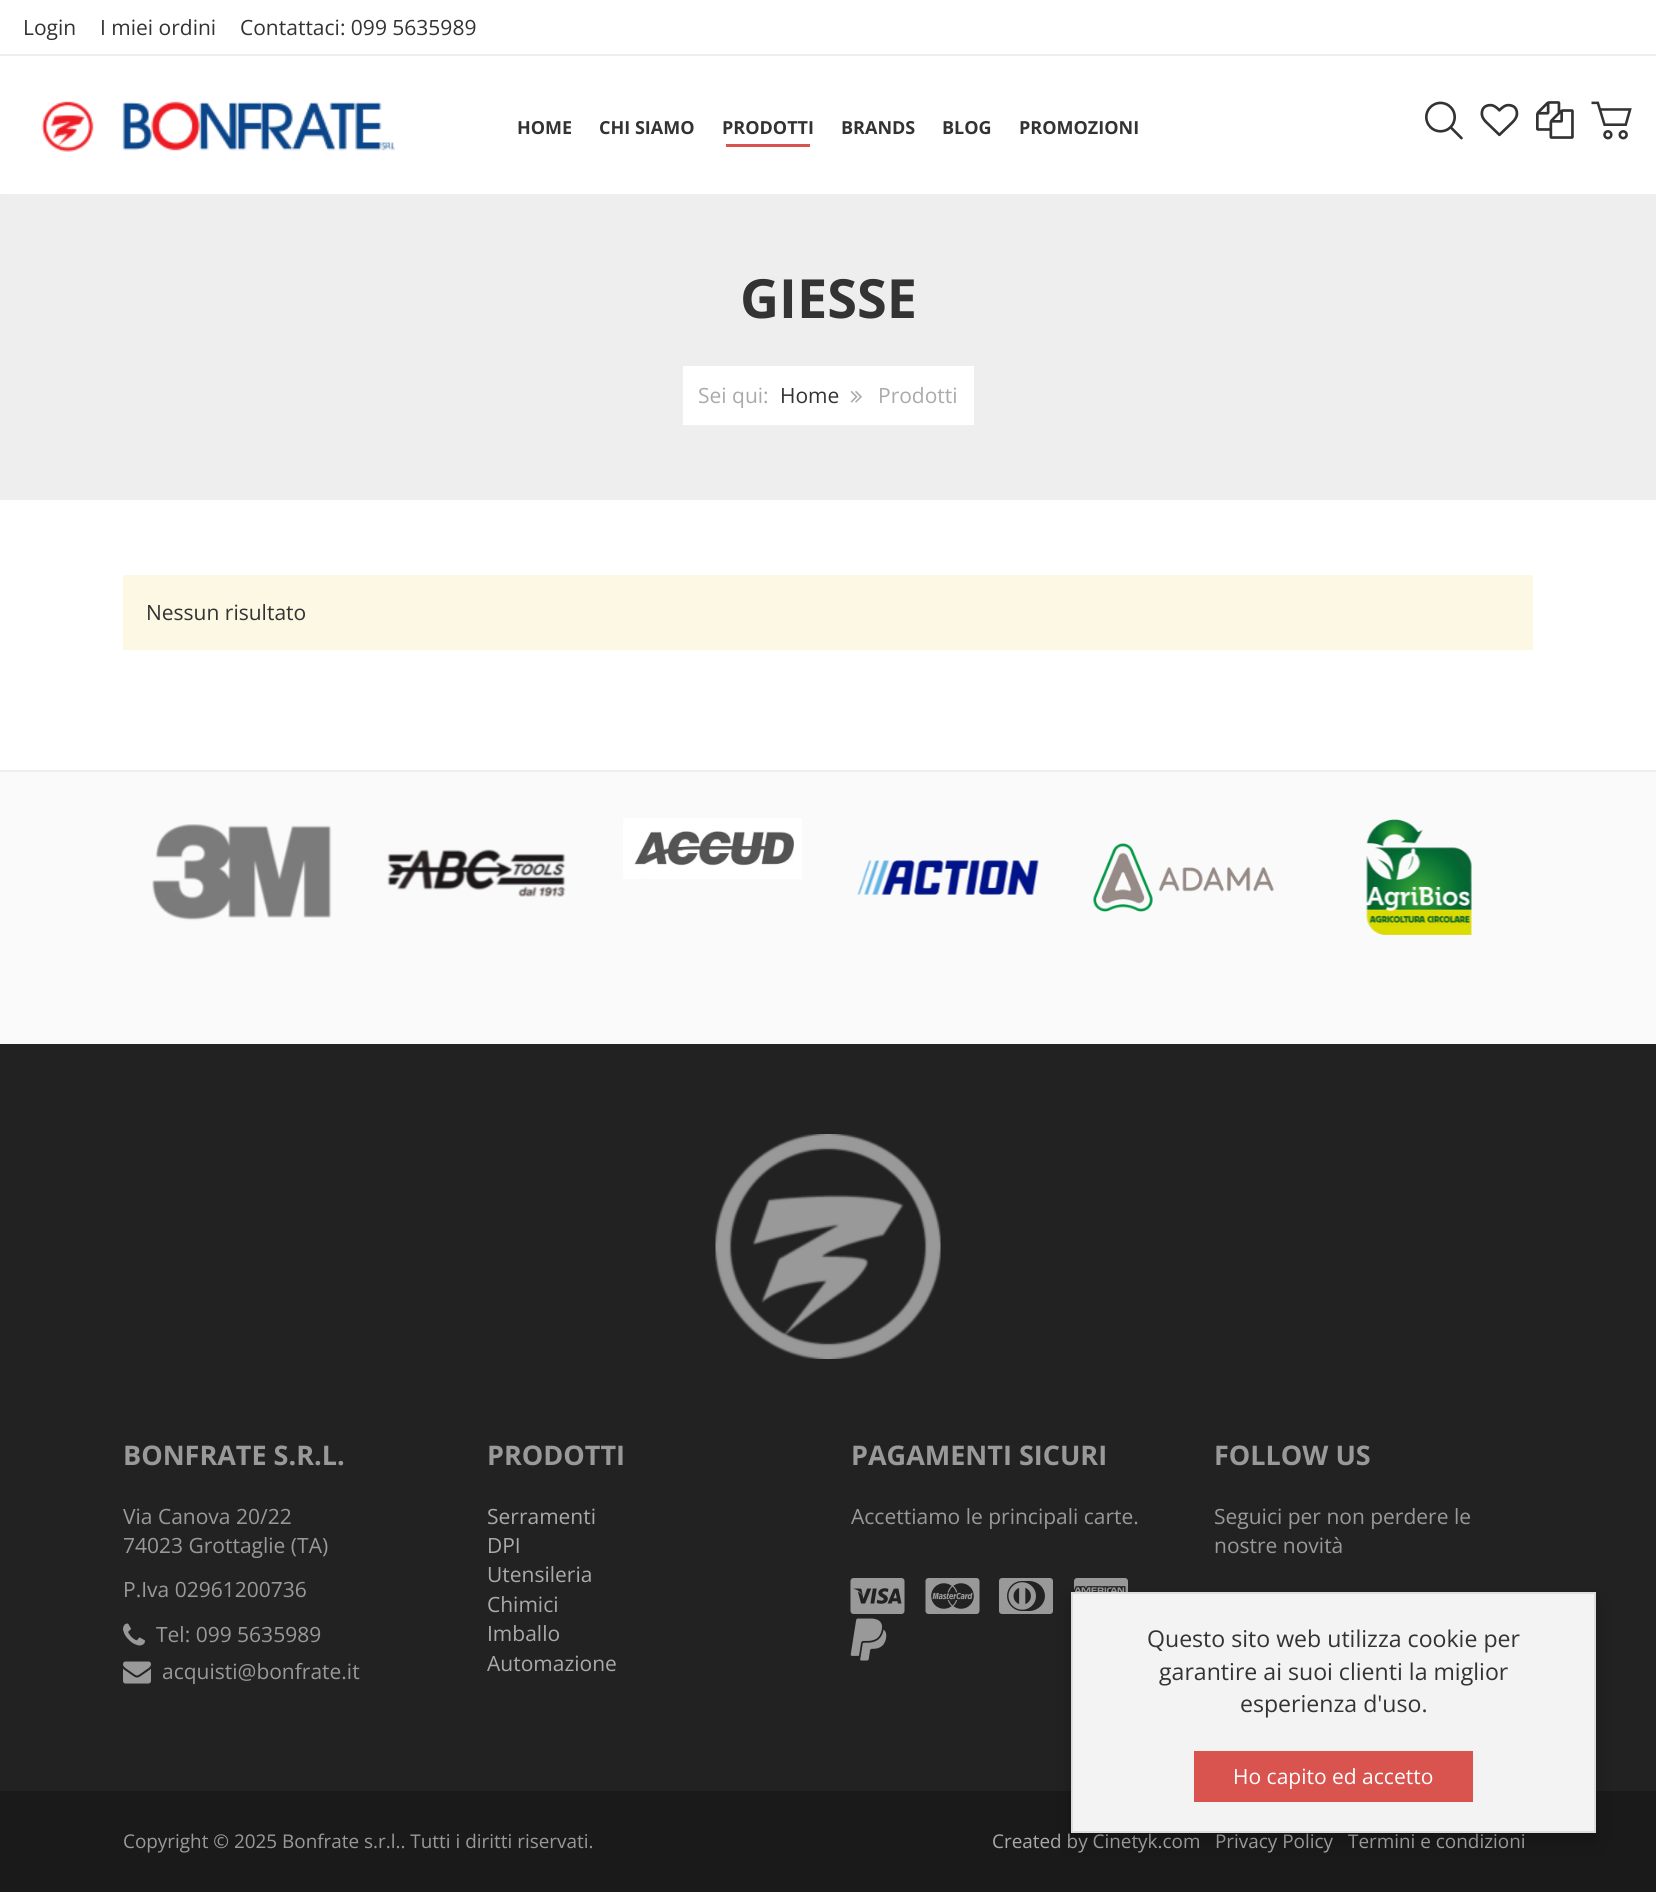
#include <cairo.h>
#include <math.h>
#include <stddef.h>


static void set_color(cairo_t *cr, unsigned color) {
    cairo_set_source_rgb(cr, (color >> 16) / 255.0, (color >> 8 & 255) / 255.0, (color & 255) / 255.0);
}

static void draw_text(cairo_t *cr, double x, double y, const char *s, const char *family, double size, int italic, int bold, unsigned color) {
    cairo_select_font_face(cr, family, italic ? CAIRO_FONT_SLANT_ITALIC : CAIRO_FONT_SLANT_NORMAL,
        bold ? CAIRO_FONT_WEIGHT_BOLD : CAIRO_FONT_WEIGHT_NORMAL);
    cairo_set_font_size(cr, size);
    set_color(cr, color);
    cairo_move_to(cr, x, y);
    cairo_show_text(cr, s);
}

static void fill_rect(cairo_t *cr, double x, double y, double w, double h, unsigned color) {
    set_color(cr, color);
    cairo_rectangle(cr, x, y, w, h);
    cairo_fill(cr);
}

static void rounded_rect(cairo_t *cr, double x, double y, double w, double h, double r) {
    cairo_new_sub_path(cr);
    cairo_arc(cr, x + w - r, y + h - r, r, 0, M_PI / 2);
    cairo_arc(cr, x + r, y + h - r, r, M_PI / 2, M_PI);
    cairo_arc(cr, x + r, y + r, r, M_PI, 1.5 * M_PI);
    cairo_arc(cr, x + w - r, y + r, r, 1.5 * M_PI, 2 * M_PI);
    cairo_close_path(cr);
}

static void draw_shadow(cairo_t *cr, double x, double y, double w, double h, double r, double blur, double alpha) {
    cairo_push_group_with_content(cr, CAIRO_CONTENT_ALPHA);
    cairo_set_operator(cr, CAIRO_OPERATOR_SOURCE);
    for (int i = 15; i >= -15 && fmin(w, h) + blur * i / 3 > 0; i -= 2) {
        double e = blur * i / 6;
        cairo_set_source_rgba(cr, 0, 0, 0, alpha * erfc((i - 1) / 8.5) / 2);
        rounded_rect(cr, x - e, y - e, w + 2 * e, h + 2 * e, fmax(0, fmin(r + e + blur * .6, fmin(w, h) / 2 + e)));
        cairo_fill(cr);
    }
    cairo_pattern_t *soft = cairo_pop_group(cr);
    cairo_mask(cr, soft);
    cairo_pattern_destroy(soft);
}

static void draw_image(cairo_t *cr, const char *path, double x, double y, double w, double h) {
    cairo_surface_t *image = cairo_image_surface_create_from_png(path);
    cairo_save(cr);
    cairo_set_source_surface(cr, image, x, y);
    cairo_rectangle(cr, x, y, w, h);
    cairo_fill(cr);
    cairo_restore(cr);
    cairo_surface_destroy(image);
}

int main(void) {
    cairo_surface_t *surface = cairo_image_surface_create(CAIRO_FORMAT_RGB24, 1656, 1893);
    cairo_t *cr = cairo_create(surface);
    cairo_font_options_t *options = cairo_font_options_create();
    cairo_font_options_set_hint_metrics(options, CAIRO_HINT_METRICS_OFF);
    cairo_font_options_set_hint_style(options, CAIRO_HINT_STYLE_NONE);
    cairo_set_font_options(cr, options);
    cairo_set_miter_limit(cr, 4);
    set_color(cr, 0xFFFFFF);
    cairo_paint(cr);
    fill_rect(cr, 0, 54, 1656, 2, 0xEEEEEE);
    draw_text(cr, 23, 35, "Login", "Open Sans", 21, 0, 0, 0x333333);
    draw_text(cr, 100, 35, "I miei ordini", "Open Sans", 21, 0, 0, 0x333333);
    draw_text(cr, 240, 35, "Contattaci: 099 5635989", "Open Sans", 21, 0, 0, 0x333333);
    fill_rect(cr, 0, 194, 1656, 306, 0xEEEEEE);
    set_color(cr, 0xEFEFEF);
    draw_shadow(cr, 2, 57, 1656, 138, 0, 1, 1);
    fill_rect(cr, 1, 56, 1655, 138, 0xFFFFFF);
    draw_image(cr, "assets/img1.png", 41, 101, 354, 51);
    draw_text(cr, 517, 134, "HOME", "Open Sans", 18, 0, 1, 0x333333);
    draw_text(cr, 599, 134, "CHI SIAMO", "Open Sans", 18, 0, 1, 0x333333);
    draw_text(cr, 722, 134, "PRODOTTI", "Open Sans", 18, 0, 1, 0x333333);
    fill_rect(cr, 726, 144, 84, 3, 0xD9534F);
    draw_text(cr, 841, 134, "BRANDS", "Open Sans", 18, 0, 1, 0x333333);
    draw_text(cr, 942, 134, "BLOG", "Open Sans", 18, 0, 1, 0x333333);
    draw_text(cr, 1019, 134, "PROMOZIONI", "Open Sans", 18, 0, 1, 0x333333);
    draw_image(cr, "assets/img2.png", 1425, 101, 38, 39);
    draw_image(cr, "assets/img3.png", 1480, 103, 39, 34);
    draw_image(cr, "assets/img4.png", 1536, 101, 38, 38);
    draw_image(cr, "assets/img5.png", 1591, 101, 41, 39);
    draw_text(cr, 740, 318, "GIESSE", "Open Sans", 54, 0, 1, 0x333333);
    fill_rect(cr, 683, 366, 291, 59, 0xFFFFFF);
    draw_text(cr, 698, 403, "Sei qui:", "Open Sans", 21, 0, 0, 0xAAAAAA);
    draw_text(cr, 780, 403, "Home", "Open Sans", 21, 0, 0, 0x333333);
    draw_image(cr, "assets/img6.png", 850, 391, 12, 12);
    draw_text(cr, 878, 403, "Prodotti", "Open Sans", 21, 0, 0, 0xAAAAAA);
    fill_rect(cr, 123, 575, 1410, 75, 0xFCF8E3);
    draw_text(cr, 146, 620, "Nessun risultato", "Open Sans", 21, 0, 0, 0x333333);
    fill_rect(cr, 0, 772, 1656, 272, 0xFAFAFA);
    fill_rect(cr, 0, 770, 1656, 2, 0xEEEEEE);
    draw_image(cr, "assets/img7.png", 152, 824, 180, 97);
    draw_image(cr, "assets/img8.png", 387, 849, 179, 48);
    draw_image(cr, "assets/img9.png", 623, 818, 179, 61);
    draw_image(cr, "assets/img10.png", 857, 860, 182, 35);
    draw_image(cr, "assets/img11.png", 1093, 843, 181, 69);
    draw_image(cr, "assets/img12.png", 1366, 819, 106, 117);
    fill_rect(cr, 0, 1044, 1656, 747, 0x222222);
    draw_image(cr, "assets/img13.png", 715, 1134, 226, 225);
    draw_text(cr, 123, 1465, "BONFRATE S.R.L.", "Open Sans", 27, 0, 1, 0x999999);
    draw_text(cr, 123, 1524, "Via Canova 20/22", "Open Sans", 21, 0, 0, 0x999999);
    draw_text(cr, 123, 1553, "74023 Grottaglie (TA)", "Open Sans", 21, 0, 0, 0x999999);
    draw_text(cr, 123, 1597, "P.Iva 02961200736", "Open Sans", 21, 0, 0, 0x999999);
    draw_image(cr, "assets/img14.png", 123, 1623, 22, 23);
    draw_text(cr, 156, 1642, "Tel: 099 5635989", "Open Sans", 21, 0, 0, 0x999999);
    draw_image(cr, "assets/img15.png", 123, 1661, 28, 23);
    draw_text(cr, 162, 1679, "acquisti@bonfrate.it", "Open Sans", 21, 0, 0, 0x999999);
    draw_text(cr, 487, 1465, "PRODOTTI", "Open Sans", 27, 0, 1, 0x999999);
    draw_text(cr, 487, 1524, "Serramenti", "Open Sans", 21, 0, 0, 0xAAAAAA);
    draw_text(cr, 487, 1553, "DPI", "Open Sans", 21, 0, 0, 0xAAAAAA);
    draw_text(cr, 487, 1582, "Utensileria", "Open Sans", 21, 0, 0, 0xAAAAAA);
    draw_text(cr, 487, 1612, "Chimici", "Open Sans", 21, 0, 0, 0xAAAAAA);
    draw_text(cr, 487, 1641, "Imballo", "Open Sans", 21, 0, 0, 0xAAAAAA);
    draw_text(cr, 487, 1671, "Automazione", "Open Sans", 21, 0, 0, 0xAAAAAA);
    draw_text(cr, 851, 1465, "PAGAMENTI SICURI", "Open Sans", 27, 0, 1, 0x999999);
    draw_text(cr, 851, 1524, "Accettiamo le principali carte.", "Open Sans", 21, 0, 0, 0x999999);
    draw_image(cr, "assets/img16.png", 850, 1578, 55, 36);
    draw_image(cr, "assets/img17.png", 925, 1578, 55, 36);
    draw_image(cr, "assets/img18.png", 999, 1578, 54, 36);
    draw_image(cr, "assets/img19.png", 1074, 1578, 54, 14);
    draw_image(cr, "assets/img20.png", 850, 1618, 37, 43);
    draw_text(cr, 1214, 1465, "FOLLOW US", "Open Sans", 27, 0, 1, 0x999999);
    draw_text(cr, 1214, 1524, "Seguici per non perdere le", "Open Sans", 21, 0, 0, 0x999999);
    draw_text(cr, 1214, 1553, "nostre novità", "Open Sans", 21, 0, 0, 0x999999);
    fill_rect(cr, 0, 1791, 1656, 101, 0x1A1A1A);
    draw_text(cr, 123, 1848, "Copyright © 2025 Bonfrate s.r.l.. Tutti i diritti riservati.", "Open Sans", 18.9, 0, 0, 0x999999);
    draw_text(cr, 992, 1848, "Created by Cinetyk.com", "Open Sans", 18.9, 0, 0, 0xAAAAAA);
    draw_text(cr, 1215, 1848, "Privacy Policy", "Open Sans", 18.9, 0, 0, 0xAAAAAA);
    draw_text(cr, 1348, 1848, "Termini e condizioni", "Open Sans", 18.9, 0, 0, 0xAAAAAA);
    set_color(cr, 0x000000);
    draw_shadow(cr, 1071, 1601, 525, 241, 0, 10, 0.23);
    set_color(cr, 0xF3F3F3);
    cairo_rectangle(cr, 1072, 1593, 523, 239);
    cairo_fill_preserve(cr);
    set_color(cr, 0xDDDDDD);
    cairo_stroke(cr);
    draw_text(cr, 1147, 1647, "Questo sito web utilizza cookie per", "Open Sans", 23.1, 0, 0, 0x333333);
    draw_text(cr, 1159, 1680, "garantire ai suoi clienti la miglior", "Open Sans", 23.1, 0, 0, 0x333333);
    draw_text(cr, 1240, 1712, "esperienza d'uso.", "Open Sans", 23.1, 0, 0, 0x333333);
    fill_rect(cr, 1194, 1751, 279, 51, 0xD9534F);
    draw_text(cr, 1233, 1784, "Ho capito ed accetto", "Open Sans", 21, 0, 0, 0xFFFFFF);
    cairo_surface_write_to_png(surface, "output.png");
    cairo_font_options_destroy(options);
    cairo_destroy(cr);
    cairo_surface_destroy(surface);
    return 0;
}
